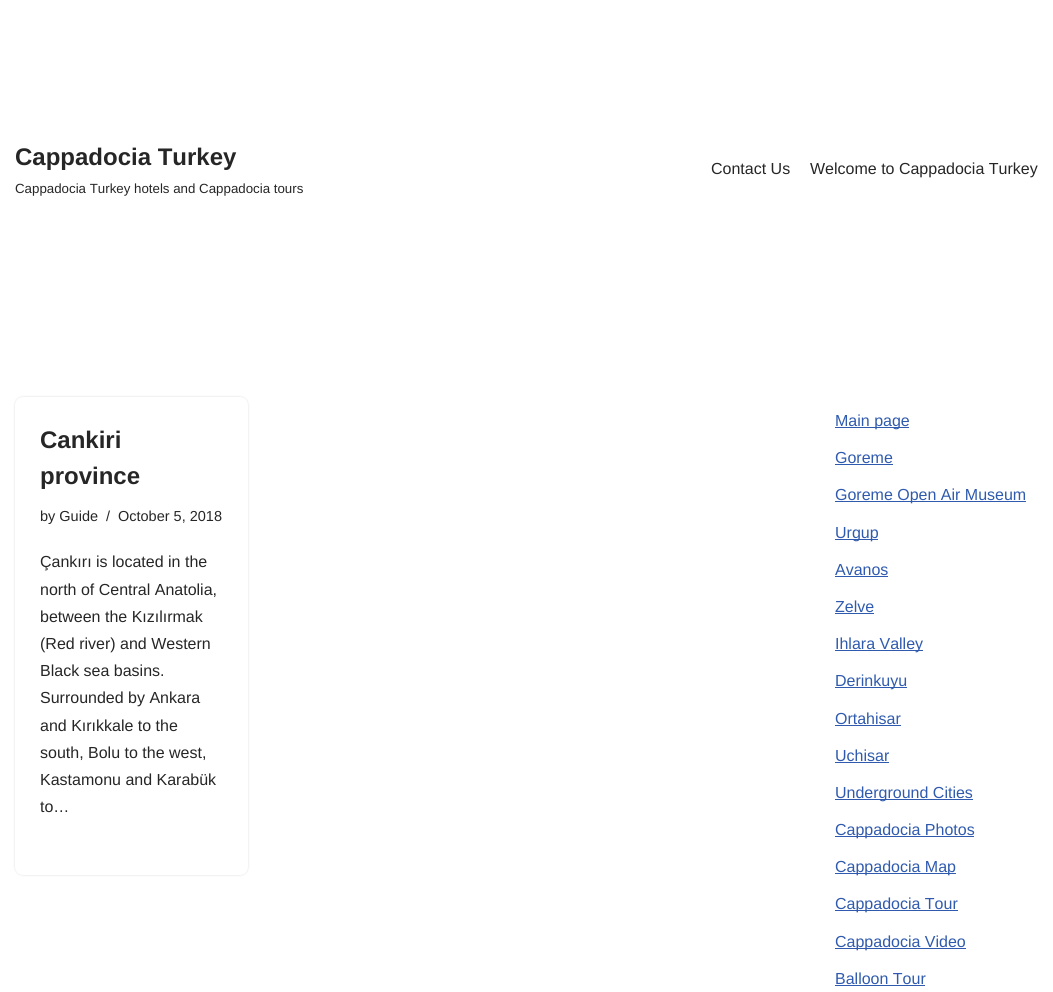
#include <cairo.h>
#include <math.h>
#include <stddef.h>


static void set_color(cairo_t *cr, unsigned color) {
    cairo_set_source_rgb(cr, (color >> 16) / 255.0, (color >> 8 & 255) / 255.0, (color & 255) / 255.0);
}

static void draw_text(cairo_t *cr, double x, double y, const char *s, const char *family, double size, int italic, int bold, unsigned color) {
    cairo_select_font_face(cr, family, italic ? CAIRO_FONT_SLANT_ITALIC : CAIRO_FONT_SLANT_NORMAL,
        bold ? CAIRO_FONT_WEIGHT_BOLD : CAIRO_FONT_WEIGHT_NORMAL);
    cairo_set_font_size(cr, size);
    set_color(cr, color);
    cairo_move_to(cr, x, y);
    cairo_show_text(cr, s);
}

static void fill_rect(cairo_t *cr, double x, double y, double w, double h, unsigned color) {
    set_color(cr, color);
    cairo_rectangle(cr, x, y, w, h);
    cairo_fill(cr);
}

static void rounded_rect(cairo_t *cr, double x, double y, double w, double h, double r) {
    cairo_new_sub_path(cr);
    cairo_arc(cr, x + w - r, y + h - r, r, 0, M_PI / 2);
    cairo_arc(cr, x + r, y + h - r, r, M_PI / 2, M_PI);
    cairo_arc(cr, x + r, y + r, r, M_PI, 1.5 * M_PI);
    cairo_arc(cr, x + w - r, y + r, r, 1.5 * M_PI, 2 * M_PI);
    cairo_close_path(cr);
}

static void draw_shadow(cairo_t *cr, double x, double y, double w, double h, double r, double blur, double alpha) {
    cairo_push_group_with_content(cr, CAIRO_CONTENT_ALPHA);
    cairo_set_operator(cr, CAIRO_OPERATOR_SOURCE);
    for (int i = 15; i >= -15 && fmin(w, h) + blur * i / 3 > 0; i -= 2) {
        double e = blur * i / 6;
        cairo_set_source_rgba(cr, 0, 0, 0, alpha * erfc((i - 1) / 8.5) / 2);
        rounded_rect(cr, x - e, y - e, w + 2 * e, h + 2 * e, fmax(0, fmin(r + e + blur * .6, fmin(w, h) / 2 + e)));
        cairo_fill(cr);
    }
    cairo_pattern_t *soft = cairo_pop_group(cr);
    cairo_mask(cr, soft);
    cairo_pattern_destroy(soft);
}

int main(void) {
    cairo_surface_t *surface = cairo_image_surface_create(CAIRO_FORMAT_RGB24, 1053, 992);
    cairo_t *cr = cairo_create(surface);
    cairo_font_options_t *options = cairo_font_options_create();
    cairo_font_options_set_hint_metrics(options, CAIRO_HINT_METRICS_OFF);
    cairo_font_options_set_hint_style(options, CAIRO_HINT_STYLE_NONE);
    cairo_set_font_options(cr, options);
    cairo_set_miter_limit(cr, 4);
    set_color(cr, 0xFFFFFF);
    cairo_paint(cr);
    draw_text(cr, 15, 165, "Cappadocia Turkey", "Liberation Sans", 24, 0, 1, 0x272626);
    draw_text(cr, 15, 193, "Cappadocia Turkey hotels and Cappadocia tours", "Liberation Sans", 13.3, 0, 0, 0x272626);
    draw_text(cr, 711, 174, "Contact Us", "Liberation Sans", 16, 0, 0, 0x272626);
    draw_text(cr, 810, 174, "Welcome to Cappadocia Turkey", "Liberation Sans", 16, 0, 0, 0x272626);
    set_color(cr, 0x000000);
    draw_shadow(cr, 15, 397, 233, 478, 8, 1, 0.15);
    set_color(cr, 0xFFFFFF);
    rounded_rect(cr, 15, 397, 233, 478, 8);
    cairo_fill(cr);
    draw_text(cr, 40, 448, "Cankiri", "Liberation Sans", 24, 0, 1, 0x272626);
    draw_text(cr, 40, 484, "province", "Liberation Sans", 24, 0, 1, 0x272626);
    draw_text(cr, 40, 521, "by Guide", "Liberation Sans", 14.5, 0, 0, 0x272626);
    draw_text(cr, 106, 521, "/", "Liberation Sans", 14.5, 0, 0, 0x272626);
    draw_text(cr, 118, 521, "October 5, 2018", "Liberation Sans", 14.5, 0, 0, 0x272626);
    draw_text(cr, 40, 567, "Çankırı is located in the", "Liberation Sans", 16, 0, 0, 0x272626);
    draw_text(cr, 40, 595, "north of Central Anatolia,", "Liberation Sans", 16, 0, 0, 0x272626);
    draw_text(cr, 40, 622, "between the Kızılırmak", "Liberation Sans", 16, 0, 0, 0x272626);
    draw_text(cr, 40, 649, "(Red river) and Western", "Liberation Sans", 16, 0, 0, 0x272626);
    draw_text(cr, 40, 676, "Black sea basins.", "Liberation Sans", 16, 0, 0, 0x272626);
    draw_text(cr, 40, 703, "Surrounded by Ankara", "Liberation Sans", 16, 0, 0, 0x272626);
    draw_text(cr, 40, 731, "and Kırıkkale to the", "Liberation Sans", 16, 0, 0, 0x272626);
    draw_text(cr, 40, 758, "south, Bolu to the west,", "Liberation Sans", 16, 0, 0, 0x272626);
    draw_text(cr, 40, 785, "Kastamonu and Karabük", "Liberation Sans", 16, 0, 0, 0x272626);
    draw_text(cr, 40, 812, "to…", "Liberation Sans", 16, 0, 0, 0x272626);
    fill_rect(cr, 835, 427, 74, 1, 0x2F5AAE);
    draw_text(cr, 835, 426, "Main page", "Liberation Sans", 16, 0, 0, 0x2F5AAE);
    draw_text(cr, 835, 463, "Goreme", "Liberation Sans", 16, 0, 0, 0x2F5AAE);
    fill_rect(cr, 835, 464, 58, 1, 0x2F5AAE);
    fill_rect(cr, 835, 501, 191, 1, 0x2F5AAE);
    draw_text(cr, 835, 500, "Goreme Open Air Museum", "Liberation Sans", 16, 0, 0, 0x2F5AAE);
    fill_rect(cr, 835, 539, 43, 1, 0x2F5AAE);
    draw_text(cr, 835, 538, "Urgup", "Liberation Sans", 16, 0, 0, 0x2F5AAE);
    draw_text(cr, 835, 575, "Avanos", "Liberation Sans", 16, 0, 0, 0x2F5AAE);
    fill_rect(cr, 835, 576, 53, 1, 0x2F5AAE);
    draw_text(cr, 835, 612, "Zelve", "Liberation Sans", 16, 0, 0, 0x2F5AAE);
    fill_rect(cr, 835, 613, 39, 1, 0x2F5AAE);
    fill_rect(cr, 835, 650, 88, 1, 0x2F5AAE);
    draw_text(cr, 835, 649, "Ihlara Valley", "Liberation Sans", 16, 0, 0, 0x2F5AAE);
    fill_rect(cr, 835, 687, 72, 1, 0x2F5AAE);
    draw_text(cr, 835, 686, "Derinkuyu", "Liberation Sans", 16, 0, 0, 0x2F5AAE);
    draw_text(cr, 835, 724, "Ortahisar", "Liberation Sans", 16, 0, 0, 0x2F5AAE);
    fill_rect(cr, 835, 725, 66, 1, 0x2F5AAE);
    draw_text(cr, 835, 761, "Uchisar", "Liberation Sans", 16, 0, 0, 0x2F5AAE);
    fill_rect(cr, 835, 762, 54, 1, 0x2F5AAE);
    fill_rect(cr, 835, 799, 138, 1, 0x2F5AAE);
    draw_text(cr, 835, 798, "Underground Cities", "Liberation Sans", 16, 0, 0, 0x2F5AAE);
    fill_rect(cr, 835, 836, 139, 1, 0x2F5AAE);
    draw_text(cr, 835, 835, "Cappadocia Photos", "Liberation Sans", 16, 0, 0, 0x2F5AAE);
    fill_rect(cr, 835, 873, 121, 1, 0x2F5AAE);
    draw_text(cr, 835, 872, "Cappadocia Map", "Liberation Sans", 16, 0, 0, 0x2F5AAE);
    fill_rect(cr, 835, 910, 123, 1, 0x2F5AAE);
    draw_text(cr, 835, 909, "Cappadocia Tour", "Liberation Sans", 16, 0, 0, 0x2F5AAE);
    fill_rect(cr, 835, 948, 131, 1, 0x2F5AAE);
    draw_text(cr, 835, 947, "Cappadocia Video", "Liberation Sans", 16, 0, 0, 0x2F5AAE);
    draw_text(cr, 835, 984, "Balloon Tour", "Liberation Sans", 16, 0, 0, 0x2F5AAE);
    fill_rect(cr, 835, 985, 90, 1, 0x2F5AAE);
    cairo_surface_write_to_png(surface, "output.png");
    cairo_font_options_destroy(options);
    cairo_destroy(cr);
    cairo_surface_destroy(surface);
    return 0;
}
